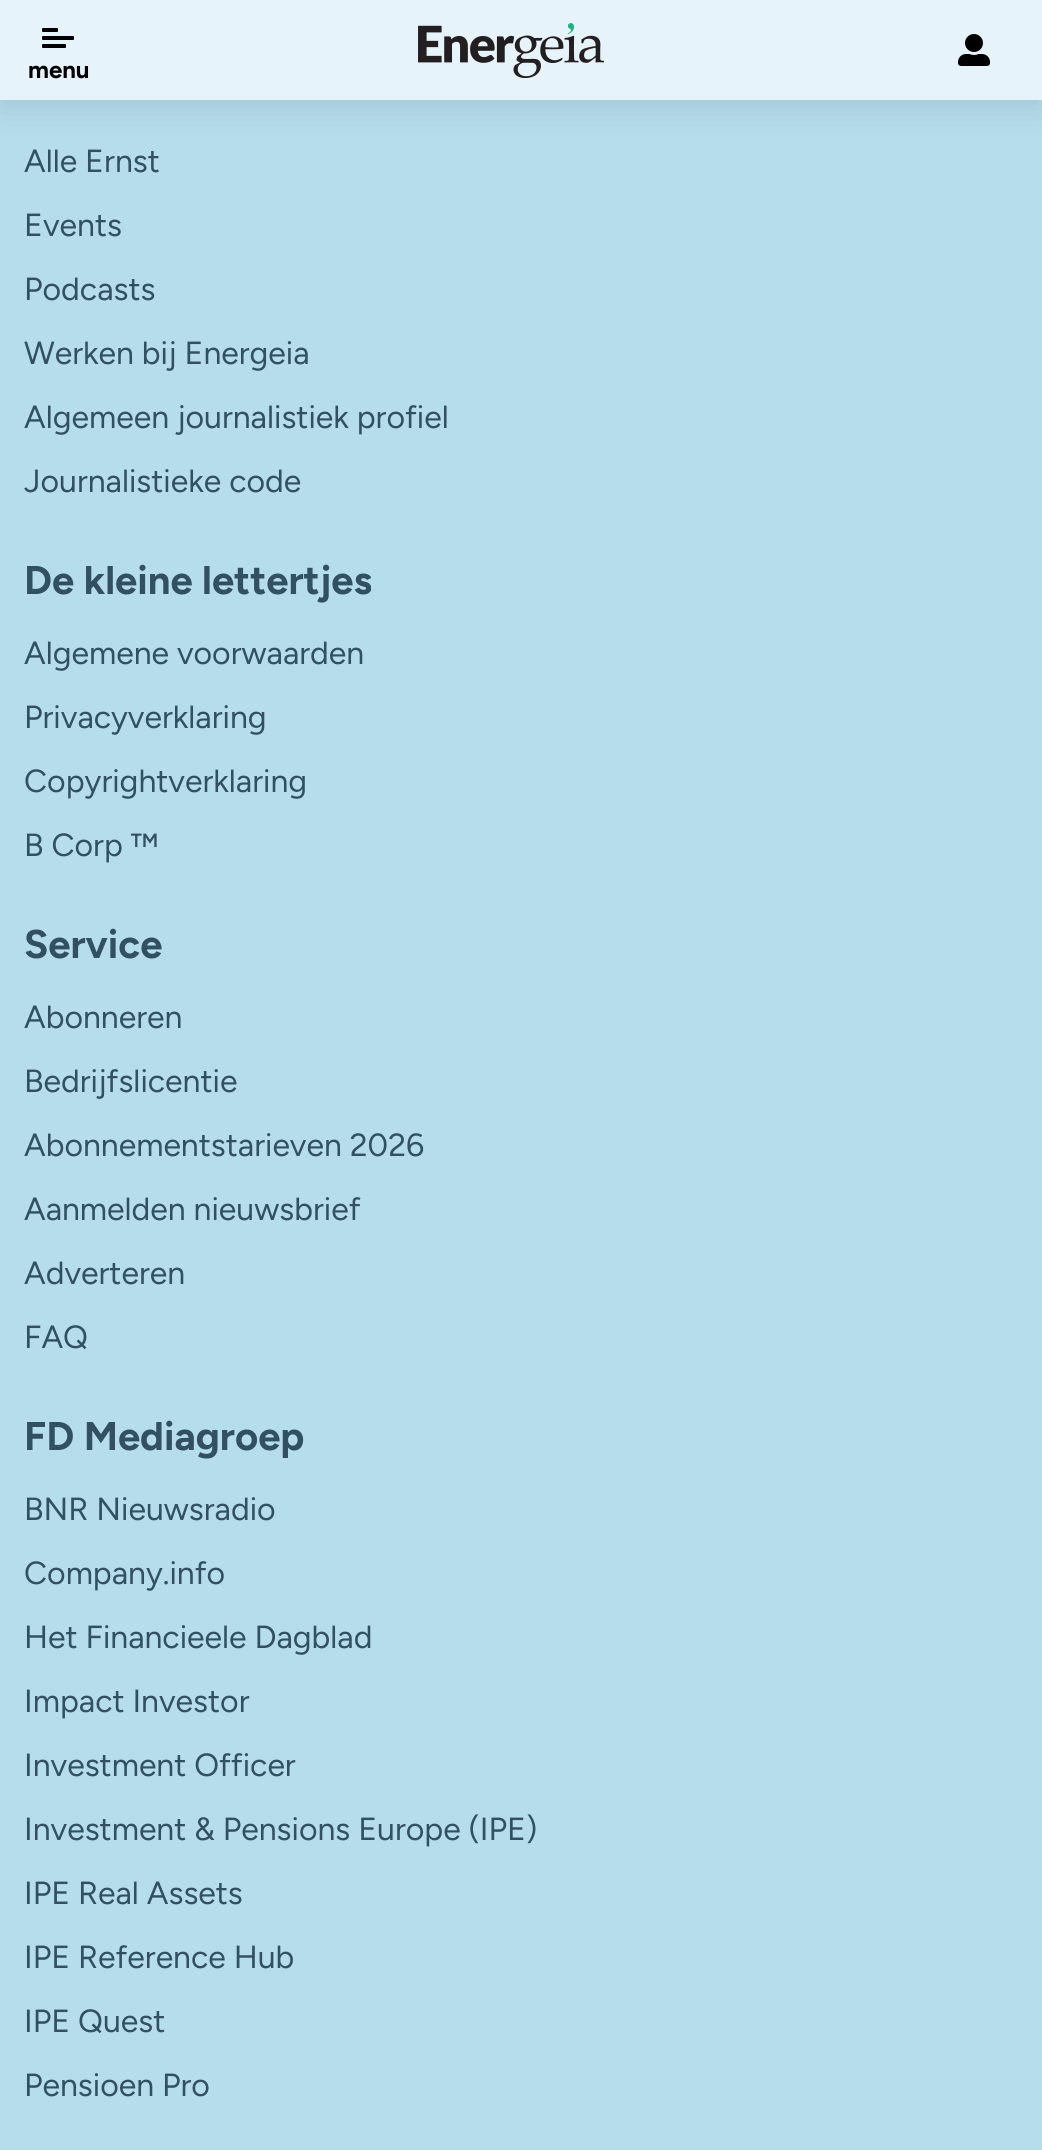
#include <cairo.h>
#include <math.h>
#include <stddef.h>


static void set_color(cairo_t *cr, unsigned color) {
    cairo_set_source_rgb(cr, (color >> 16) / 255.0, (color >> 8 & 255) / 255.0, (color & 255) / 255.0);
}

static void draw_text(cairo_t *cr, double x, double y, const char *s, const char *family, double size, int italic, int bold, unsigned color) {
    cairo_select_font_face(cr, family, italic ? CAIRO_FONT_SLANT_ITALIC : CAIRO_FONT_SLANT_NORMAL,
        bold ? CAIRO_FONT_WEIGHT_BOLD : CAIRO_FONT_WEIGHT_NORMAL);
    cairo_set_font_size(cr, size);
    set_color(cr, color);
    cairo_move_to(cr, x, y);
    cairo_show_text(cr, s);
}

static void fill_rect(cairo_t *cr, double x, double y, double w, double h, unsigned color) {
    set_color(cr, color);
    cairo_rectangle(cr, x, y, w, h);
    cairo_fill(cr);
}

static void rounded_rect(cairo_t *cr, double x, double y, double w, double h, double r) {
    cairo_new_sub_path(cr);
    cairo_arc(cr, x + w - r, y + h - r, r, 0, M_PI / 2);
    cairo_arc(cr, x + r, y + h - r, r, M_PI / 2, M_PI);
    cairo_arc(cr, x + r, y + r, r, M_PI, 1.5 * M_PI);
    cairo_arc(cr, x + w - r, y + r, r, 1.5 * M_PI, 2 * M_PI);
    cairo_close_path(cr);
}

static void draw_shadow(cairo_t *cr, double x, double y, double w, double h, double r, double blur, double alpha) {
    cairo_push_group_with_content(cr, CAIRO_CONTENT_ALPHA);
    cairo_set_operator(cr, CAIRO_OPERATOR_SOURCE);
    for (int i = 15; i >= -15 && fmin(w, h) + blur * i / 3 > 0; i -= 2) {
        double e = blur * i / 6;
        cairo_set_source_rgba(cr, 0, 0, 0, alpha * erfc((i - 1) / 8.5) / 2);
        rounded_rect(cr, x - e, y - e, w + 2 * e, h + 2 * e, fmax(0, fmin(r + e + blur * .6, fmin(w, h) / 2 + e)));
        cairo_fill(cr);
    }
    cairo_pattern_t *soft = cairo_pop_group(cr);
    cairo_mask(cr, soft);
    cairo_pattern_destroy(soft);
}

static void draw_image(cairo_t *cr, const char *path, double x, double y, double w, double h) {
    cairo_surface_t *image = cairo_image_surface_create_from_png(path);
    cairo_save(cr);
    cairo_set_source_surface(cr, image, x, y);
    cairo_rectangle(cr, x, y, w, h);
    cairo_fill(cr);
    cairo_restore(cr);
    cairo_surface_destroy(image);
}

int main(void) {
    cairo_surface_t *surface = cairo_image_surface_create(CAIRO_FORMAT_RGB24, 1042, 2150);
    cairo_t *cr = cairo_create(surface);
    cairo_font_options_t *options = cairo_font_options_create();
    cairo_font_options_set_hint_metrics(options, CAIRO_HINT_METRICS_OFF);
    cairo_font_options_set_hint_style(options, CAIRO_HINT_STYLE_NONE);
    cairo_set_font_options(cr, options);
    cairo_set_miter_limit(cr, 4);
    set_color(cr, 0xB5DDEC);
    cairo_paint(cr);
    set_color(cr, 0x000000);
    draw_shadow(cr, 0, 8, 1042, 100, 0, 16, 0.1);
    fill_rect(cr, 0, 0, 1042, 100, 0xE7F3FB);
    draw_image(cr, "assets/img1.png", 418, 23, 186, 55);
    draw_image(cr, "assets/img2.png", 958, 34, 32, 32);
    draw_image(cr, "assets/img3.png", 42, 28, 32, 20);
    draw_text(cr, 28, 78, "menu", "Figtree", 24, 0, 1, 0x000000);
    draw_text(cr, 24, 172, "Alle Ernst", "Figtree", 32, 0, 0, 0x335061);
    draw_text(cr, 24, 236, "Events", "Figtree", 32, 0, 0, 0x335061);
    draw_text(cr, 24, 300, "Podcasts", "Figtree", 32, 0, 0, 0x335061);
    draw_text(cr, 24, 364, "Werken bij Energeia", "Figtree", 32, 0, 0, 0x335061);
    draw_text(cr, 24, 428, "Algemeen journalistiek profiel", "Figtree", 32, 0, 0, 0x335061);
    draw_text(cr, 24, 492, "Journalistieke code", "Figtree", 32, 0, 0, 0x335061);
    draw_text(cr, 24, 594, "De kleine lettertjes", "Figtree", 40, 0, 1, 0x335061);
    draw_text(cr, 24, 664, "Algemene voorwaarden", "Figtree", 32, 0, 0, 0x335061);
    draw_text(cr, 24, 728, "Privacyverklaring", "Figtree", 32, 0, 0, 0x335061);
    draw_text(cr, 24, 792, "Copyrightverklaring", "Figtree", 32, 0, 0, 0x335061);
    draw_text(cr, 24, 856, "B Corp ™", "Figtree", 32, 0, 0, 0x335061);
    draw_text(cr, 24, 958, "Service", "Figtree", 40, 0, 1, 0x335061);
    draw_text(cr, 24, 1028, "Abonneren", "Figtree", 32, 0, 0, 0x335061);
    draw_text(cr, 24, 1092, "Bedrijfslicentie", "Figtree", 32, 0, 0, 0x335061);
    draw_text(cr, 24, 1156, "Abonnementstarieven 2026", "Figtree", 32, 0, 0, 0x335061);
    draw_text(cr, 24, 1220, "Aanmelden nieuwsbrief", "Figtree", 32, 0, 0, 0x335061);
    draw_text(cr, 24, 1284, "Adverteren", "Figtree", 32, 0, 0, 0x335061);
    draw_text(cr, 24, 1348, "FAQ", "Figtree", 32, 0, 0, 0x335061);
    draw_text(cr, 24, 1450, "FD Mediagroep", "Figtree", 40, 0, 1, 0x335061);
    draw_text(cr, 24, 1520, "BNR Nieuwsradio", "Figtree", 32, 0, 0, 0x335061);
    draw_text(cr, 24, 1584, "Company.info", "Figtree", 32, 0, 0, 0x335061);
    draw_text(cr, 24, 1648, "Het Financieele Dagblad", "Figtree", 32, 0, 0, 0x335061);
    draw_text(cr, 24, 1712, "Impact Investor", "Figtree", 32, 0, 0, 0x335061);
    draw_text(cr, 24, 1776, "Investment Officer", "Figtree", 32, 0, 0, 0x335061);
    draw_text(cr, 24, 1840, "Investment & Pensions Europe (IPE)", "Figtree", 32, 0, 0, 0x335061);
    draw_text(cr, 24, 1904, "IPE Real Assets", "Figtree", 32, 0, 0, 0x335061);
    draw_text(cr, 24, 1968, "IPE Reference Hub", "Figtree", 32, 0, 0, 0x335061);
    draw_text(cr, 24, 2032, "IPE Quest", "Figtree", 32, 0, 0, 0x335061);
    draw_text(cr, 24, 2096, "Pensioen Pro", "Figtree", 32, 0, 0, 0x335061);
    cairo_surface_write_to_png(surface, "output.png");
    cairo_font_options_destroy(options);
    cairo_destroy(cr);
    cairo_surface_destroy(surface);
    return 0;
}
